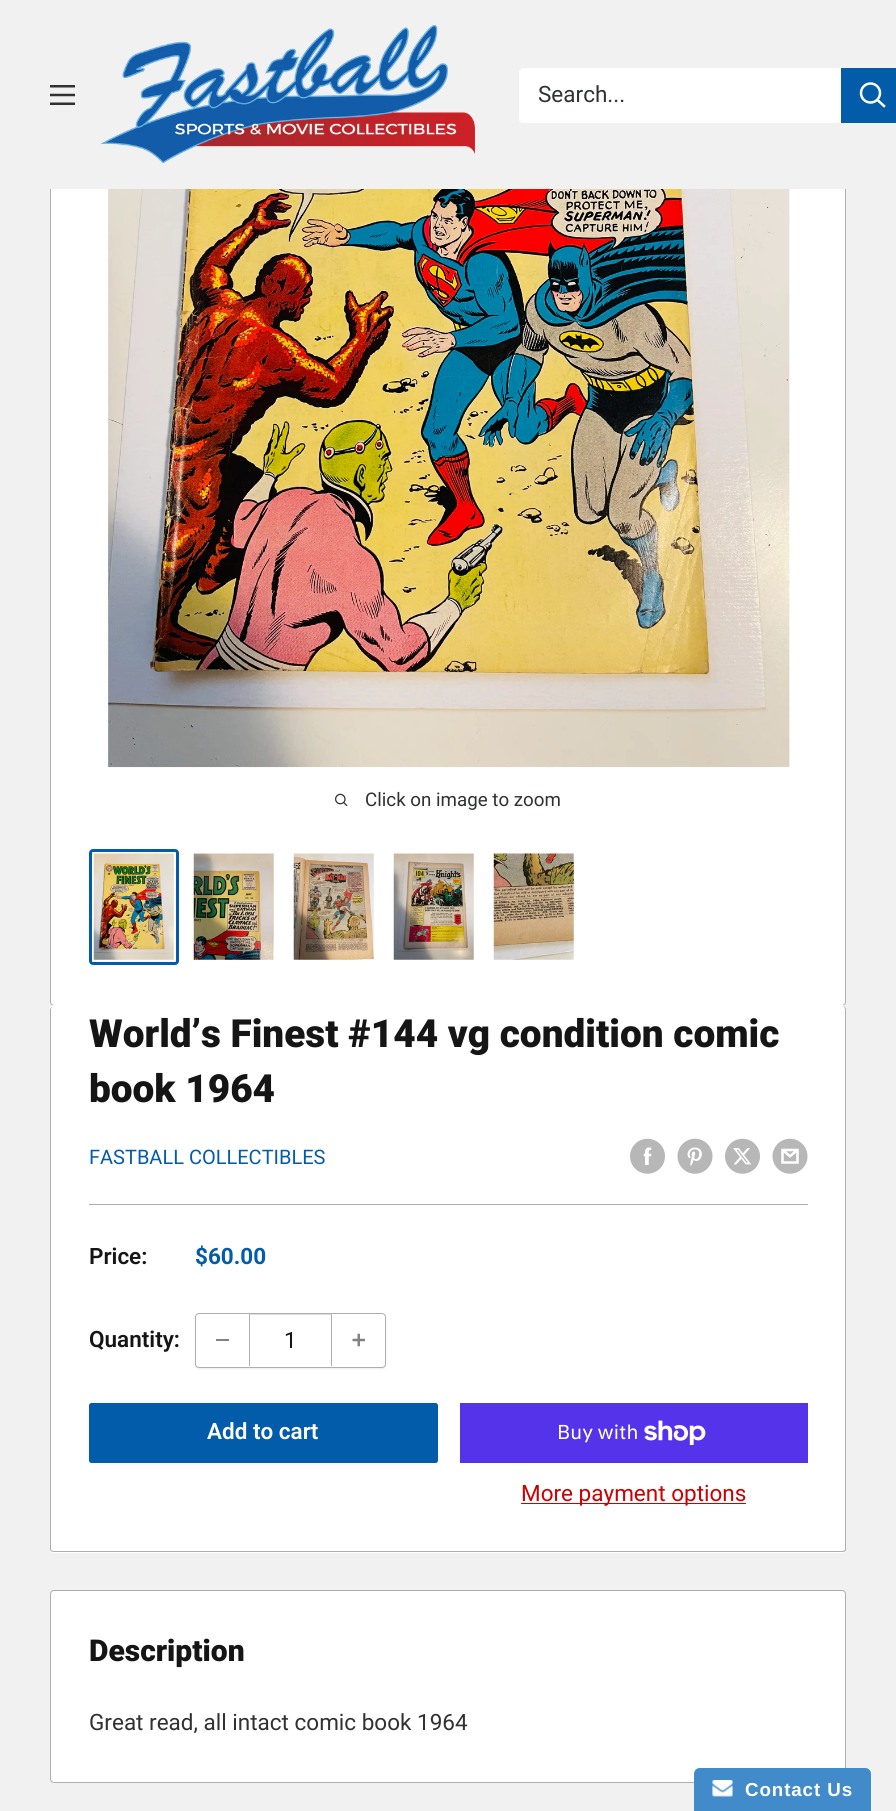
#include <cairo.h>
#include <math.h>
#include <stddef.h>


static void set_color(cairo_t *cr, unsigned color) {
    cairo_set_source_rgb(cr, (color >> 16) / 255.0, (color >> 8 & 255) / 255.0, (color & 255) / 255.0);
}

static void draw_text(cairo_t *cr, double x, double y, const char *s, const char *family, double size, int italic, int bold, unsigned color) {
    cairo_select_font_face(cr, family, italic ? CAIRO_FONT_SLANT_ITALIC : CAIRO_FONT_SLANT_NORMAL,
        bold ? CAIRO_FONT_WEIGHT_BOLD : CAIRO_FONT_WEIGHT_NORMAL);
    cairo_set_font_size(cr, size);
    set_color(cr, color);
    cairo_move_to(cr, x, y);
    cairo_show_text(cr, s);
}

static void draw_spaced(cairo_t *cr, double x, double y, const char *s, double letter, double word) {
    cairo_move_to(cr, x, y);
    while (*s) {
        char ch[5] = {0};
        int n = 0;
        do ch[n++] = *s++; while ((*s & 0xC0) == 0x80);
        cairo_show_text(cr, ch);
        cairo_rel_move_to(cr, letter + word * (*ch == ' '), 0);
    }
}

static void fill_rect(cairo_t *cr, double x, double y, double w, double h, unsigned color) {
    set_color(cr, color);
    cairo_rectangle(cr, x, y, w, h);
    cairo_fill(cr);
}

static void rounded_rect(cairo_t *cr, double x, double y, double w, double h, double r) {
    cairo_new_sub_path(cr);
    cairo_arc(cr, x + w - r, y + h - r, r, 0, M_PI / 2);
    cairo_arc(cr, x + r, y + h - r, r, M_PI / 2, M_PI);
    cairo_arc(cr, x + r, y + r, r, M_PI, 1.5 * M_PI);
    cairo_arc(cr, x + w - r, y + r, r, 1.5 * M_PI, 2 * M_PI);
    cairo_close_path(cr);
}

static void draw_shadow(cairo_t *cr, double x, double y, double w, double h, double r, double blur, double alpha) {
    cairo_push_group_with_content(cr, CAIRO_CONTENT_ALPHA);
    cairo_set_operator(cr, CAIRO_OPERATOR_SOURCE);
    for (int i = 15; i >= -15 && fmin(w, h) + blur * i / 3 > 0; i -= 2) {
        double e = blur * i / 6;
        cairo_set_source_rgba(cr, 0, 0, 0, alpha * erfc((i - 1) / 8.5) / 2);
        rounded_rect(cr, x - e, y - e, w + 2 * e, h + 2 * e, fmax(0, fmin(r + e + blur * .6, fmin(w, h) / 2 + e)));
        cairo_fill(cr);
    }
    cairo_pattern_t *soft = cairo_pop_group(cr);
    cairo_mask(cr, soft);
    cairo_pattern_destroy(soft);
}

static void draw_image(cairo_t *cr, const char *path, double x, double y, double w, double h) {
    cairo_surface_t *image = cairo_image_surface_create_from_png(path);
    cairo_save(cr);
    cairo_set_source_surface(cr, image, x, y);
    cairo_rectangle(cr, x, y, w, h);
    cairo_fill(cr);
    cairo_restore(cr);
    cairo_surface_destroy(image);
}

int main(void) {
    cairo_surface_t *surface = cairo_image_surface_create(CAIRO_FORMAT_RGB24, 896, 1811);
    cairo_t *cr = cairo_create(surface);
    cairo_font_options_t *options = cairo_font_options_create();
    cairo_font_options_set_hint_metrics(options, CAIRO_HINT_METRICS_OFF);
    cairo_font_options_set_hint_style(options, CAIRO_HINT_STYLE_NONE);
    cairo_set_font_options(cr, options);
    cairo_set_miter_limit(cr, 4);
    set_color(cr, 0xF1F1F1);
    cairo_paint(cr);
    set_color(cr, 0xFFFFFF);
    rounded_rect(cr, 50.5, -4.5, 795, 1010, 3.5);
    cairo_fill_preserve(cr);
    set_color(cr, 0xAFADAD);
    cairo_set_line_width(cr, 1);
    cairo_stroke(cr);
    fill_rect(cr, 50, 0, 796, 189, 0xF1F1F1);
    draw_image(cr, "assets/img1.png", 50, 85, 25, 20);
    draw_image(cr, "assets/img2.png", 100, 25, 375, 138);
    set_color(cr, 0xFFFFFF);
    rounded_rect(cr, 519, 68, 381, 55, 4);
    cairo_fill(cr);
    draw_text(cr, 538, 102, "Search...", "Roboto", 22.5, 0, 0, 0x303131);
    fill_rect(cr, 841, 68, 55, 55, 0x025CAA);
    cairo_new_path(cr);
    cairo_move_to(cr, 884, 106);
    cairo_line_to(cr, 877.5, 100);
    set_color(cr, 0xFFFFFF);
    cairo_set_line_width(cr, 2.5);
    cairo_set_line_cap(cr, CAIRO_LINE_CAP_SQUARE);
    cairo_stroke(cr);
    cairo_arc(cr, 870.5, 93, 9.5, 0, 2 * M_PI);
    cairo_set_line_cap(cr, CAIRO_LINE_CAP_BUTT);
    cairo_stroke(cr);
    draw_image(cr, "assets/img3.png", 108, 189, 682, 579);
    draw_image(cr, "assets/img4.png", 335, 793, 13, 14);
    draw_text(cr, 365, 806, "Click on image to zoom", "Roboto", 18.75, 0, 0, 0x303131);
    rounded_rect(cr, 90.5, 850.5, 87, 113, 2.5);
    set_color(cr, 0x025CAA);
    cairo_set_line_width(cr, 3);
    cairo_stroke(cr);
    draw_image(cr, "assets/img5.png", 93, 853, 81, 107);
    draw_image(cr, "assets/img6.png", 193, 853, 81, 107);
    draw_image(cr, "assets/img7.png", 293, 853, 81, 107);
    draw_image(cr, "assets/img8.png", 393, 853, 81, 107);
    draw_image(cr, "assets/img9.png", 493, 853, 81, 107);
    set_color(cr, 0xFFFFFF);
    cairo_new_path(cr);
    cairo_move_to(cr, 54, 1005);
    cairo_curve_to(cr, 51, 1005, 50, 1007, 50, 1010);
    cairo_curve_to(cr, 50, 1008, 52, 1006, 54, 1006);
    cairo_line_to(cr, 842, 1006);
    cairo_curve_to(cr, 844, 1006, 845, 1007, 846, 1009);
    cairo_curve_to(cr, 846, 1007, 844, 1005, 842, 1005);
    cairo_close_path(cr);
    cairo_fill(cr);
    rounded_rect(cr, 50, 1006, 796, 547, 4);
    cairo_fill(cr);
    set_color(cr, 0xAFADAD);
    cairo_set_fill_rule(cr, CAIRO_FILL_RULE_EVEN_ODD);
    cairo_new_path(cr);
    cairo_move_to(cr, 54, 1006);
    cairo_line_to(cr, 842, 1006);
    cairo_curve_to(cr, 845, 1006, 846, 1008, 846, 1010);
    cairo_line_to(cr, 846, 1549);
    cairo_curve_to(cr, 846, 1551, 845, 1552, 842, 1552);
    cairo_line_to(cr, 54, 1552);
    cairo_curve_to(cr, 52, 1552, 50, 1551, 50, 1549);
    cairo_line_to(cr, 50, 1010);
    cairo_curve_to(cr, 50, 1008, 52, 1006, 54, 1006);
    cairo_close_path(cr);
    cairo_move_to(cr, 54, 1006);
    cairo_line_to(cr, 842, 1006);
    cairo_curve_to(cr, 844, 1006, 845, 1008, 845, 1010);
    cairo_line_to(cr, 845, 1549);
    cairo_curve_to(cr, 845, 1550, 844, 1551, 842, 1551);
    cairo_line_to(cr, 54, 1551);
    cairo_curve_to(cr, 52, 1551, 51, 1550, 51, 1549);
    cairo_line_to(cr, 51, 1010);
    cairo_curve_to(cr, 51, 1008, 52, 1006, 54, 1006);
    cairo_close_path(cr);
    cairo_fill(cr);
    draw_text(cr, 89, 1047, "World’s Finest #144 vg condition comic", "Roboto Black", 38.75, 0, 0, 0x151515);
    draw_text(cr, 89, 1102, "book 1964", "Roboto Black", 38.75, 0, 0, 0x151515);
    draw_text(cr, 89, 1164, "FASTBALL COLLECTIBLES", "Roboto", 20, 0, 0, 0x025CAA);
    draw_image(cr, "assets/img10.png", 630, 1138, 35, 36);
    draw_image(cr, "assets/img11.png", 677, 1138, 36, 36);
    draw_image(cr, "assets/img12.png", 725, 1138, 35, 36);
    draw_image(cr, "assets/img13.png", 772, 1138, 36, 36);
    fill_rect(cr, 89, 1204, 719, 1, 0xAFADAD);
    draw_text(cr, 89, 1264, "Price:", "Roboto SemiBold", 22.5, 0, 0, 0x151515);
    draw_text(cr, 195, 1264, "$60.00", "Roboto", 22.5, 0, 1, 0x025CAA);
    draw_text(cr, 89, 1347, "Quantity:", "Roboto SemiBold", 22.5, 0, 0, 0x151515);
    cairo_save(cr);
    cairo_new_path(cr);
    cairo_move_to(cr, 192, 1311);
    cairo_line_to(cr, 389, 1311);
    cairo_line_to(cr, 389, 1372);
    cairo_line_to(cr, 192, 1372);
    cairo_close_path(cr);
    cairo_move_to(cr, 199, 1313);
    cairo_line_to(cr, 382, 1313);
    cairo_curve_to(cr, 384, 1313, 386, 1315, 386, 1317);
    cairo_line_to(cr, 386, 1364);
    cairo_curve_to(cr, 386, 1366, 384, 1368, 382, 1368);
    cairo_line_to(cr, 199, 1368);
    cairo_curve_to(cr, 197, 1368, 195, 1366, 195, 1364);
    cairo_line_to(cr, 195, 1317);
    cairo_curve_to(cr, 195, 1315, 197, 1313, 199, 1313);
    cairo_close_path(cr);
    cairo_clip(cr);
    set_color(cr, 0xAFADAD);
    draw_shadow(cr, 195, 1314, 191, 55, 4, 0.5, 0.2);
    cairo_restore(cr);
    rounded_rect(cr, 195.5, 1313.5, 190, 54, 3.5);
    set_color(cr, 0xAFADAD);
    cairo_set_line_width(cr, 1);
    cairo_stroke(cr);
    fill_rect(cr, 216, 1339, 13, 2, 0x838383);
    fill_rect(cr, 250, 1314, 81, 1, 0xDFDEDE);
    fill_rect(cr, 331, 1314, 1, 52, 0xAFADAD);
    fill_rect(cr, 249, 1314, 1, 52, 0xAFADAD);
    draw_text(cr, 284, 1348, "1", "Roboto", 22.5, 0, 0, 0x151515);
    draw_image(cr, "assets/img14.png", 352, 1333, 13, 14);
    set_color(cr, 0x025CAA);
    rounded_rect(cr, 89, 1403, 349, 60, 2.5);
    cairo_fill(cr);
    draw_text(cr, 207, 1439, "Add to cart", "Roboto SemiBold", 22.5, 0, 0, 0xFFFFFF);
    fill_rect(cr, 460, 1403, 348, 60, 0x5433EB);
    draw_text(cr, 557, 1439, "Buy with", "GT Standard", 20, 0, 0, 0xFFFFFF);
    draw_image(cr, "assets/img15.png", 644, 1420, 62, 25);
    fill_rect(cr, 521, 1503, 225, 1, 0xCC0000);
    draw_text(cr, 521, 1501, "More payment options", "Roboto", 22.5, 0, 0, 0xCC0000);
    set_color(cr, 0xFFFFFF);
    rounded_rect(cr, 50.5, 1590.5, 795, 192, 3.5);
    cairo_fill_preserve(cr);
    set_color(cr, 0xAFADAD);
    cairo_stroke(cr);
    draw_text(cr, 89, 1661, "Description", "Roboto Black", 30, 0, 0, 0x151515);
    draw_text(cr, 89, 1730, "Great read, all intact comic book 1964", "Roboto", 22.5, 0, 0, 0x303131);
    set_color(cr, 0x428BCA);
    cairo_new_path(cr);
    cairo_move_to(cr, 700, 1768);
    cairo_line_to(cr, 865, 1768);
    cairo_curve_to(cr, 868.5, 1768, 871, 1770.5, 871, 1774);
    cairo_line_to(cr, 871, 1811);
    cairo_line_to(cr, 694, 1811);
    cairo_line_to(cr, 694, 1774);
    cairo_curve_to(cr, 694, 1770.5, 696.5, 1768, 700, 1768);
    cairo_close_path(cr);
    cairo_fill(cr);
    draw_image(cr, "assets/img16.png", 712, 1780, 21, 17);
    cairo_select_font_face(cr, "Liberation Sans", CAIRO_FONT_SLANT_NORMAL, CAIRO_FONT_WEIGHT_BOLD);
    cairo_set_font_size(cr, 18.75);
    set_color(cr, 0xFFFFFF);
    draw_spaced(cr, 745, 1796, "Contact Us", 0.9, 0);
    cairo_surface_write_to_png(surface, "output.png");
    cairo_font_options_destroy(options);
    cairo_destroy(cr);
    cairo_surface_destroy(surface);
    return 0;
}
